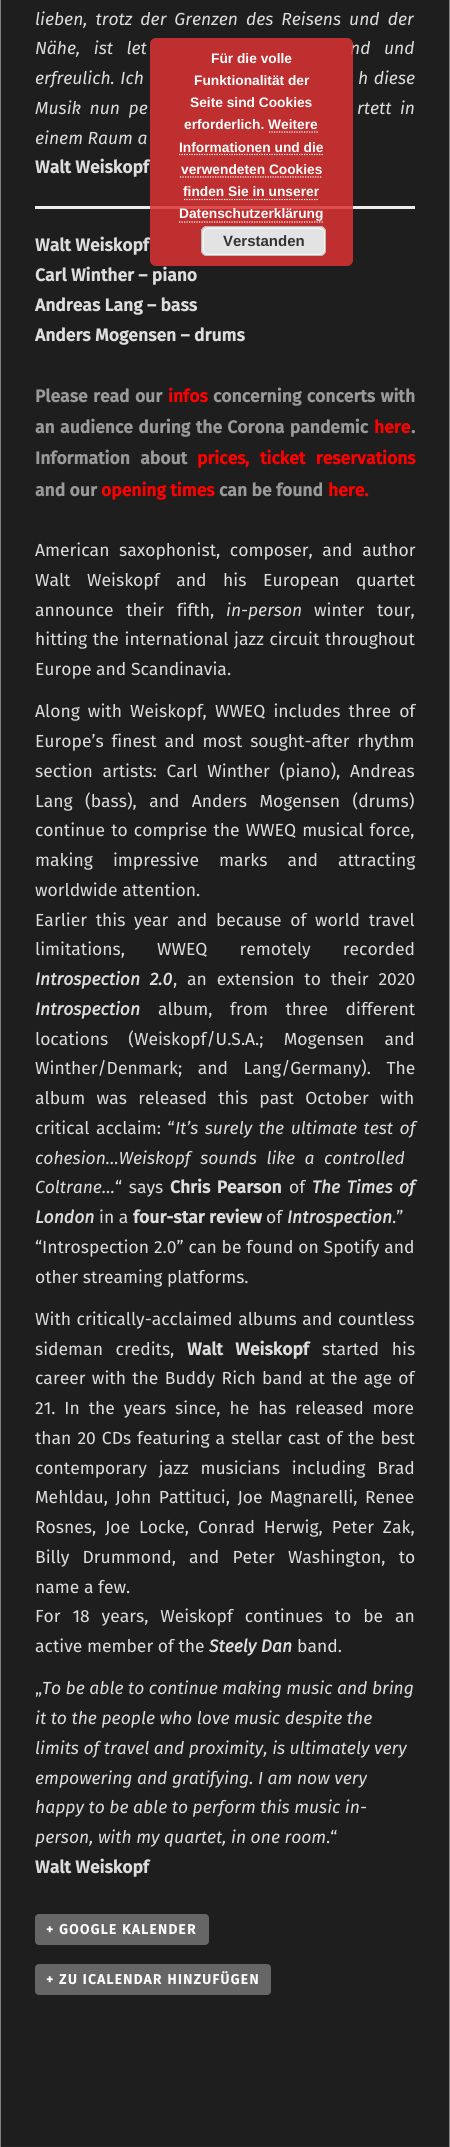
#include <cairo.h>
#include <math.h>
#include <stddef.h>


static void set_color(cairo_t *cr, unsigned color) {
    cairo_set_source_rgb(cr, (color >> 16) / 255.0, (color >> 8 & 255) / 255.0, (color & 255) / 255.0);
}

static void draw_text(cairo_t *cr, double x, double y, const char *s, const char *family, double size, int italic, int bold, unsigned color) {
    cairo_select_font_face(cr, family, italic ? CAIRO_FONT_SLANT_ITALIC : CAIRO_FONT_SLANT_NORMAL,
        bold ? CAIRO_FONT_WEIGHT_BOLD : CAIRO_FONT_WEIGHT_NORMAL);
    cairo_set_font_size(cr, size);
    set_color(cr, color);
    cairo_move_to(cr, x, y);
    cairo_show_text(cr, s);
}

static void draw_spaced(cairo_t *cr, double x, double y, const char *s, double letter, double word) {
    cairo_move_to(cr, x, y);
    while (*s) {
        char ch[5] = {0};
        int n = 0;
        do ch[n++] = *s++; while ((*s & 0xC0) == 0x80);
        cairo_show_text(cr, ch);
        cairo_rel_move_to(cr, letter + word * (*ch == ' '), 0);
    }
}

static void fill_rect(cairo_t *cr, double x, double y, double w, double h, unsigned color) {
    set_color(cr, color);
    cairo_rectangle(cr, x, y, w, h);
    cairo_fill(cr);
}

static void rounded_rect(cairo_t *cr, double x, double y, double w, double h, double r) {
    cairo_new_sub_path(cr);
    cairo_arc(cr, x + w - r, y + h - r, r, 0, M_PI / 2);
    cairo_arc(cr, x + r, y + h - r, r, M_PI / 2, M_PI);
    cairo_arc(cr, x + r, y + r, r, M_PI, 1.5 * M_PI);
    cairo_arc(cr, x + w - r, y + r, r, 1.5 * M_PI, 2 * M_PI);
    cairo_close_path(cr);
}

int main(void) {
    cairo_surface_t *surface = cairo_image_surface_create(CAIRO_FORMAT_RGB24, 450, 2147);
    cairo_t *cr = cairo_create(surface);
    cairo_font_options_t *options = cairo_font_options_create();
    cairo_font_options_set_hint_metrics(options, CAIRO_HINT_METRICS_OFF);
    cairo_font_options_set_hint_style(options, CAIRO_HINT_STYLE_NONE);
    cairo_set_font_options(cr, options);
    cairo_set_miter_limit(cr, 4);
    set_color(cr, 0x222222);
    cairo_paint(cr);
    cairo_rectangle(cr, 0.5, -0.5, 449, 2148);
    set_color(cr, 0x808080);
    cairo_set_line_width(cr, 1);
    cairo_stroke(cr);
    fill_rect(cr, 1, 0, 448, 2146, 0x1E1E1E);
    cairo_select_font_face(cr, "Fira Sans", CAIRO_FONT_SLANT_ITALIC, CAIRO_FONT_WEIGHT_NORMAL);
    cairo_set_font_size(cr, 17.5);
    set_color(cr, 0xDDDDDD);
    draw_spaced(cr, 35, 25, "lieben, trotz der Grenzen des Reisens und der", 0, 3.5);
    draw_spaced(cr, 35, 54, "Nähe, ist let", 0, 9);
    draw_spaced(cr, 350, 54, "nd und", 0, 9);
    draw_spaced(cr, 35, 84, "erfreulich. Ich", 0, 1);
    draw_spaced(cr, 358, 84, "h diese", 0, 1);
    draw_spaced(cr, 35, 114, "Musik nun pe", 0, 4);
    draw_spaced(cr, 357, 114, "rtett in", 0, 4);
    draw_text(cr, 35, 144, "einem Raum a", "Fira Sans", 17.5, 1, 0, 0xDDDDDD);
    draw_text(cr, 35, 173, "Walt Weiskopf", "Fira Sans", 17.5, 0, 1, 0xDDDDDD);
    fill_rect(cr, 35, 206, 380, 3, 0xEAECEE);
    draw_text(cr, 35, 251, "Walt Weiskopf", "Fira Sans", 17.5, 0, 1, 0xDDDDDD);
    draw_text(cr, 35, 281, "Carl Winther – piano", "Fira Sans", 17.5, 0, 1, 0xDDDDDD);
    draw_text(cr, 35, 311, "Andreas Lang – bass", "Fira Sans", 17.5, 0, 1, 0xDDDDDD);
    draw_text(cr, 35, 341, "Anders Mogensen – drums", "Fira Sans", 17.5, 0, 1, 0xDDDDDD);
    set_color(cr, 0x999999);
    draw_spaced(cr, 35, 402, "Please read our", 0, 1);
    draw_text(cr, 168, 402, "infos", "Fira Sans", 17.5, 0, 1, 0xFF0000);
    set_color(cr, 0x999999);
    draw_spaced(cr, 213, 402, "concerning concerts with", 0, 1);
    draw_spaced(cr, 35, 433, "an audience during the Corona pandemic", 0, 1);
    draw_text(cr, 374, 433, "here", "Fira Sans", 17.5, 0, 1, 0xFF0000);
    draw_text(cr, 411, 433, ".", "Fira Sans", 17.5, 0, 1, 0x999999);
    draw_spaced(cr, 35, 464, "Information about", 0, 6);
    draw_text(cr, 197, 464, "prices", "Fira Sans", 17.5, 0, 1, 0xFF0000);
    draw_text(cr, 245, 464, ",", "Fira Sans", 17.5, 0, 1, 0xFF0000);
    draw_spaced(cr, 260, 464, "ticket reservations", 0, 6);
    draw_text(cr, 35, 496, "and our", "Fira Sans", 17.5, 0, 1, 0x999999);
    draw_text(cr, 101, 496, "opening times", "Fira Sans", 17.5, 0, 1, 0xFF0000);
    draw_text(cr, 219, 496, "can be found", "Fira Sans", 17.5, 0, 1, 0x999999);
    draw_text(cr, 328, 496, "here.", "Fira Sans", 17.5, 0, 1, 0xFF0000);
    cairo_select_font_face(cr, "Fira Sans", CAIRO_FONT_SLANT_NORMAL, CAIRO_FONT_WEIGHT_NORMAL);
    set_color(cr, 0xDDDDDD);
    draw_spaced(cr, 35, 556, "American saxophonist, composer, and author", 0, 5);
    draw_spaced(cr, 35, 586, "Walt Weiskopf and his European quartet", 0, 12);
    draw_spaced(cr, 35, 616, "announce their fifth,", 0, 8);
    draw_text(cr, 226, 616, "in-person", "Fira Sans", 17.5, 1, 0, 0xDDDDDD);
    cairo_select_font_face(cr, "Fira Sans", CAIRO_FONT_SLANT_NORMAL, CAIRO_FONT_WEIGHT_NORMAL);
    draw_spaced(cr, 314, 616, "winter tour,", 0, 8);
    draw_spaced(cr, 35, 645, "hitting the international jazz circuit throughout", 0, 1);
    draw_text(cr, 35, 675, "Europe and Scandinavia.", "Fira Sans", 17.5, 0, 0, 0xDDDDDD);
    draw_spaced(cr, 35, 717, "Along with Weiskopf, WWEQ includes three of", 0, 3.5);
    draw_spaced(cr, 35, 747, "Europe’s finest and most sought-after rhythm", 0, 3.25);
    draw_spaced(cr, 35, 777, "section artists: Carl Winther (piano), Andreas", 0, 5);
    draw_spaced(cr, 35, 807, "Lang (bass), and Anders Mogensen (drums)", 0, 7.75);
    draw_spaced(cr, 35, 836, "continue to comprise the WWEQ musical force,", 0, 1.5);
    draw_spaced(cr, 35, 866, "making impressive marks and attracting", 0, 15.5);
    draw_text(cr, 35, 896, "worldwide attention.", "Fira Sans", 17.5, 0, 0, 0xDDDDDD);
    draw_spaced(cr, 35, 926, "Earlier this year and because of world travel", 0, 4);
    draw_spaced(cr, 35, 955, "limitations, WWEQ remotely recorded", 0, 27.5);
    cairo_select_font_face(cr, "Fira Sans", CAIRO_FONT_SLANT_ITALIC, CAIRO_FONT_WEIGHT_BOLD);
    draw_spaced(cr, 35, 985, "Introspection 2.0", 0, 5);
    cairo_select_font_face(cr, "Fira Sans", CAIRO_FONT_SLANT_NORMAL, CAIRO_FONT_WEIGHT_NORMAL);
    draw_spaced(cr, 173, 985, ", an extension to their 2020", 0, 5.25);
    draw_text(cr, 35, 1015, "Introspection", "Fira Sans", 17.5, 1, 1, 0xDDDDDD);
    cairo_select_font_face(cr, "Fira Sans", CAIRO_FONT_SLANT_NORMAL, CAIRO_FONT_WEIGHT_NORMAL);
    draw_spaced(cr, 158, 1015, "album, from three different", 0, 13);
    draw_spaced(cr, 35, 1045, "locations (Weiskopf/U.S.A.; Mogensen and", 0, 15.5);
    draw_spaced(cr, 35, 1074, "Winther/Denmark; and Lang/Germany). The", 0, 11);
    draw_spaced(cr, 35, 1104, "album was released this past October with", 0, 6.75);
    draw_spaced(cr, 35, 1134, "critical acclaim: “", 0, 2);
    cairo_select_font_face(cr, "Fira Sans", CAIRO_FONT_SLANT_ITALIC, CAIRO_FONT_WEIGHT_NORMAL);
    draw_spaced(cr, 175, 1134, "It’s surely the ultimate test of", 0, 2);
    draw_spaced(cr, 35, 1164, "cohesion…Weiskopf sounds like a controlled", 0, 5);
    draw_text(cr, 35, 1193, "Coltrane…", "Fira Sans", 17.5, 1, 0, 0xDDDDDD);
    cairo_select_font_face(cr, "Fira Sans", CAIRO_FONT_SLANT_NORMAL, CAIRO_FONT_WEIGHT_NORMAL);
    draw_spaced(cr, 115, 1193, "“ says", 0, 2);
    cairo_select_font_face(cr, "Fira Sans", CAIRO_FONT_SLANT_NORMAL, CAIRO_FONT_WEIGHT_BOLD);
    draw_spaced(cr, 170, 1193, "Chris Pearson", 0, 2);
    draw_text(cr, 289, 1193, "of", "Fira Sans", 17.5, 0, 0, 0xDDDDDD);
    cairo_select_font_face(cr, "Fira Sans", CAIRO_FONT_SLANT_ITALIC, CAIRO_FONT_WEIGHT_BOLD);
    draw_spaced(cr, 312, 1193, "The Times of", 0, 2);
    draw_text(cr, 35, 1223, "London", "Fira Sans", 17.5, 1, 1, 0xDDDDDD);
    draw_text(cr, 99, 1223, "in a", "Fira Sans", 17.5, 0, 0, 0xDDDDDD);
    draw_text(cr, 133, 1223, "four-star review", "Fira Sans", 17.5, 0, 1, 0xDDDDDD);
    draw_text(cr, 266, 1223, "of", "Fira Sans", 17.5, 0, 0, 0xDDDDDD);
    draw_text(cr, 287, 1223, "Introspection", "Fira Sans", 17.5, 1, 1, 0xDDDDDD);
    draw_text(cr, 392, 1223, ".”", "Fira Sans", 17.5, 0, 0, 0xDDDDDD);
    draw_spaced(cr, 35, 1253, "“Introspection 2.0” can be found on Spotify and", 0, 0.25);
    draw_text(cr, 35, 1283, "other streaming platforms.", "Fira Sans", 17.5, 0, 0, 0xDDDDDD);
    draw_spaced(cr, 35, 1325, "With critically-acclaimed albums and countless", 0, 1);
    draw_spaced(cr, 35, 1355, "sideman credits,", 0, 8);
    cairo_select_font_face(cr, "Fira Sans", CAIRO_FONT_SLANT_NORMAL, CAIRO_FONT_WEIGHT_BOLD);
    draw_spaced(cr, 187, 1355, "Walt Weiskopf", 0, 8);
    cairo_select_font_face(cr, "Fira Sans", CAIRO_FONT_SLANT_NORMAL, CAIRO_FONT_WEIGHT_NORMAL);
    draw_spaced(cr, 322, 1355, "started his", 0, 8);
    draw_spaced(cr, 35, 1384, "career with the Buddy Rich band at the age of", 0, 1.75);
    draw_spaced(cr, 35, 1414, "21. In the years since, he has released more", 0, 4.25);
    draw_spaced(cr, 35, 1444, "than 20 CDs featuring a stellar cast of the best", 0, 1.4);
    draw_spaced(cr, 35, 1474, "contemporary jazz musicians including Brad", 0, 7.25);
    draw_spaced(cr, 35, 1503, "Mehldau, John Pattituci, Joe Magnarelli, Renee", 0, 2.75);
    draw_spaced(cr, 35, 1533, "Rosnes, Joe Locke, Conrad Herwig, Peter Zak,", 0, 4.25);
    draw_spaced(cr, 35, 1563, "Billy Drummond, and Peter Washington, to", 0, 8.5);
    draw_text(cr, 35, 1593, "name a few.", "Fira Sans", 17.5, 0, 0, 0xDDDDDD);
    draw_spaced(cr, 35, 1622, "For 18 years, Weiskopf continues to be an", 0, 7.25);
    draw_text(cr, 35, 1652, "active member of the", "Fira Sans", 17.5, 0, 0, 0xDDDDDD);
    draw_text(cr, 209, 1652, "Steely Dan", "Fira Sans", 17.5, 1, 1, 0xDDDDDD);
    draw_text(cr, 297, 1652, "band.", "Fira Sans", 17.5, 0, 0, 0xDDDDDD);
    draw_text(cr, 35, 1694, "„", "Fira Sans", 17.5, 0, 0, 0xDDDDDD);
    draw_text(cr, 42, 1694, "To be able to continue making music and bring", "Fira Sans", 17.5, 1, 0, 0xDDDDDD);
    draw_text(cr, 35, 1724, "it to the people who love music despite the", "Fira Sans", 17.5, 1, 0, 0xDDDDDD);
    draw_text(cr, 35, 1754, "limits of travel and proximity, is ultimately very", "Fira Sans", 17.5, 1, 0, 0xDDDDDD);
    draw_text(cr, 35, 1784, "empowering and gratifying. I am now very", "Fira Sans", 17.5, 1, 0, 0xDDDDDD);
    draw_text(cr, 35, 1813, "happy to be able to perform this music in-", "Fira Sans", 17.5, 1, 0, 0xDDDDDD);
    draw_text(cr, 35, 1843, "person, with my quartet, in one room", "Fira Sans", 17.5, 1, 0, 0xDDDDDD);
    draw_text(cr, 326, 1843, ".“", "Fira Sans", 17.5, 0, 0, 0xDDDDDD);
    draw_text(cr, 35, 1873, "Walt Weiskopf", "Fira Sans", 17.5, 0, 1, 0xDDDDDD);
    set_color(cr, 0x666666);
    rounded_rect(cr, 35, 1914, 174, 31, 4);
    cairo_fill(cr);
    cairo_set_font_size(cr, 13.75);
    set_color(cr, 0xFFFFFF);
    draw_spaced(cr, 46, 1934, "+ GOOGLE KALENDER", 1.25, 0);
    set_color(cr, 0x666666);
    rounded_rect(cr, 35, 1964, 236, 31, 4);
    cairo_fill(cr);
    set_color(cr, 0xFFFFFF);
    draw_spaced(cr, 46, 1984, "+ ZU ICALENDAR HINZUFÜGEN", 1.25, 0);
    cairo_set_source_rgba(cr, 0.867, 0.2, 0.2, 0.85);
    rounded_rect(cr, 150, 38, 203, 228, 6);
    cairo_fill(cr);
    draw_text(cr, 211, 63, "Für die volle", "Liberation Sans", 13.75, 0, 1, 0xFFFFFF);
    draw_text(cr, 194, 85, "Funktionalität der", "Liberation Sans", 13.75, 0, 1, 0xFFFFFF);
    draw_text(cr, 190, 107, "Seite sind Cookies", "Liberation Sans", 13.75, 0, 1, 0xFFFFFF);
    draw_text(cr, 184, 129, "erforderlich. Weitere", "Liberation Sans", 13.75, 0, 1, 0xFFFFFF);
    draw_text(cr, 179, 152, "Informationen und die", "Liberation Sans", 13.75, 0, 1, 0xFFFFFF);
    cairo_new_path(cr);
    cairo_move_to(cr, 269, 132);
    cairo_line_to(cr, 319, 132);
    cairo_set_line_width(cr, 1.2);
    cairo_set_dash(cr, (double[]){1.25, 1.25}, 2, 0);
    cairo_stroke(cr);
    cairo_new_path(cr);
    cairo_move_to(cr, 179, 154.5);
    cairo_line_to(cr, 324, 154.5);
    cairo_stroke(cr);
    draw_text(cr, 181, 174, "verwendeten Cookies", "Liberation Sans", 13.75, 0, 1, 0xFFFFFF);
    cairo_new_path(cr);
    cairo_move_to(cr, 180, 177);
    cairo_line_to(cr, 322.5, 177);
    cairo_stroke(cr);
    draw_text(cr, 183, 196, "finden Sie in unserer", "Liberation Sans", 13.75, 0, 1, 0xFFFFFF);
    cairo_new_path(cr);
    cairo_move_to(cr, 184, 199.5);
    cairo_line_to(cr, 319, 199.5);
    cairo_stroke(cr);
    draw_text(cr, 179, 218, "Datenschutzerklärung", "Liberation Sans", 13.75, 0, 1, 0xFFFFFF);
    cairo_new_path(cr);
    cairo_move_to(cr, 179, 222);
    cairo_line_to(cr, 324, 222);
    cairo_stroke(cr);
    set_color(cr, 0xE3E3E3);
    rounded_rect(cr, 201, 226, 125, 30, 6);
    cairo_fill(cr);
    rounded_rect(cr, 203.5, 228.5, 121, 26, 4.5);
    set_color(cr, 0xF6F6F6);
    cairo_set_line_width(cr, 1);
    cairo_set_dash(cr, NULL, 0, 0);
    cairo_stroke(cr);
    rounded_rect(cr, 201.5, 226.5, 124, 29, 5.5);
    set_color(cr, 0xBBBBBB);
    cairo_stroke(cr);
    draw_text(cr, 223, 246, "Verstanden", "Liberation Sans", 15, 0, 1, 0x333333);
    cairo_surface_write_to_png(surface, "output.png");
    cairo_font_options_destroy(options);
    cairo_destroy(cr);
    cairo_surface_destroy(surface);
    return 0;
}
